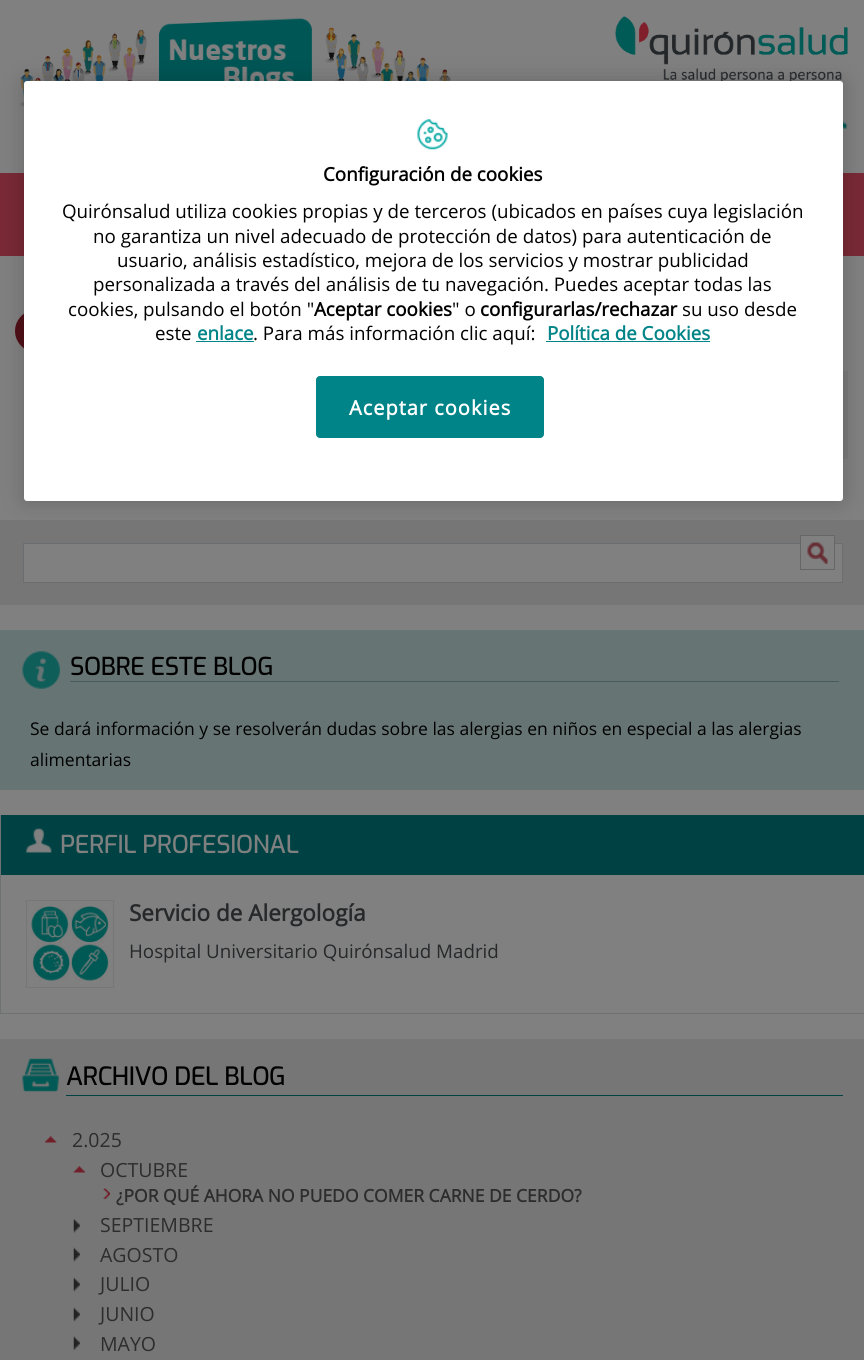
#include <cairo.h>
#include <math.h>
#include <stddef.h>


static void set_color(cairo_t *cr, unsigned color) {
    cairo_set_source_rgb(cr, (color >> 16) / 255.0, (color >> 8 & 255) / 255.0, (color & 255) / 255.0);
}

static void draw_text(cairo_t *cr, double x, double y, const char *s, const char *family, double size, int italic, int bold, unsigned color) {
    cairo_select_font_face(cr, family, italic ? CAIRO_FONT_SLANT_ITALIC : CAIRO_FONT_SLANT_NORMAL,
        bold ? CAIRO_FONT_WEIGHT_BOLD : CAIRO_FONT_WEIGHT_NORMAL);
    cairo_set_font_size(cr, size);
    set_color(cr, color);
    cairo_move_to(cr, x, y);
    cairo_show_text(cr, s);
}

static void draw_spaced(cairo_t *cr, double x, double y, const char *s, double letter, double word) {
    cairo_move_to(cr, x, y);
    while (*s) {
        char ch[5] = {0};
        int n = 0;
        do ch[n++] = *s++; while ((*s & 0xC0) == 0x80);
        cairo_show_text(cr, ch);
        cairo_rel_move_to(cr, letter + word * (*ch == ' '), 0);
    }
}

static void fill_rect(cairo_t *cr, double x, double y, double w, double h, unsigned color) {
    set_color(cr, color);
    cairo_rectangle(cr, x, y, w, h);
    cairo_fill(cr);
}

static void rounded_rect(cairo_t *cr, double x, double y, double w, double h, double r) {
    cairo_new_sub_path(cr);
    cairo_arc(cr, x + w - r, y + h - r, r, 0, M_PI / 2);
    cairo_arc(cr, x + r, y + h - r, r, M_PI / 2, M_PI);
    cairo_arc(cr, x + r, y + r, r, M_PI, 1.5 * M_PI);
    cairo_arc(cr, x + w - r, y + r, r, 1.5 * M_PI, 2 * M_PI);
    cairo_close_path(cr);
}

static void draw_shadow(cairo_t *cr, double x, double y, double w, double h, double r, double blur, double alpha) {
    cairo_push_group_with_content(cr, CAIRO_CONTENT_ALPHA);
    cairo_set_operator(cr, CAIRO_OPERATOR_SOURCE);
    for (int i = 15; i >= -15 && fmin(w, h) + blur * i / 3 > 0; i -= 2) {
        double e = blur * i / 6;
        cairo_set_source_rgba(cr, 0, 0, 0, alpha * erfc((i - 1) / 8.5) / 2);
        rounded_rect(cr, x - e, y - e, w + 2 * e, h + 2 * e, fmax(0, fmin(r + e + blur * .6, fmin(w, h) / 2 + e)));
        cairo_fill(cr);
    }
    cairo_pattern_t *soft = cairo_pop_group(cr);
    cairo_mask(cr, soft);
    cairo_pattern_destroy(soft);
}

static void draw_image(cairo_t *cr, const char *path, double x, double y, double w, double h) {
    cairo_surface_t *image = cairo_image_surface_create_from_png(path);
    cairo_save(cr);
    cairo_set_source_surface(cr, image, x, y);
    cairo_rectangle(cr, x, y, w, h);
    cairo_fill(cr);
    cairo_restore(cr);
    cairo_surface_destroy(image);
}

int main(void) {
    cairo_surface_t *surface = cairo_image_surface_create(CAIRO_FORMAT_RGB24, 864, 1360);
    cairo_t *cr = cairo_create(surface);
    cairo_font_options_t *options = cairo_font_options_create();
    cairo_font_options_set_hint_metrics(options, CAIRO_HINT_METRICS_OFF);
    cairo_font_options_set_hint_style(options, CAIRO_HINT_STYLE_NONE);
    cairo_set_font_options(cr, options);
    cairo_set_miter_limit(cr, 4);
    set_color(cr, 0x808080);
    cairo_paint(cr);
    draw_image(cr, "assets/img2.png", 20, 18, 431, 89);
    draw_image(cr, "assets/img3.png", 615, 16, 233, 65);
    draw_image(cr, "assets/img4.png", 843, 121, 5, 9);
    fill_rect(cr, 0, 173, 864, 83, 0x782935);
    set_color(cr, 0x500F17);
    cairo_new_path(cr);
    cairo_move_to(cr, 40, 308.5);
    cairo_curve_to(cr, 54, 308.5, 65, 318.5, 65, 331);
    cairo_curve_to(cr, 65, 343.5, 54, 353.5, 40, 353.5);
    cairo_curve_to(cr, 26, 353.5, 15, 343.5, 15, 331);
    cairo_curve_to(cr, 15, 318.5, 26, 308.5, 40, 308.5);
    cairo_close_path(cr);
    cairo_fill(cr);
    fill_rect(cr, 843, 371, 5, 88, 0x7A7A7B);
    fill_rect(cr, 0, 520, 864, 85, 0x767676);
    set_color(cr, 0x000000);
    draw_shadow(cr, 24, 81, 819, 420, 3, 11, 0.2);
    set_color(cr, 0xFFFFFF);
    rounded_rect(cr, 24, 81, 819, 420, 3);
    cairo_fill(cr);
    draw_image(cr, "assets/img1.png", 417, 119, 31, 31);
    draw_text(cr, 323, 181, "Configuración de cookies", "Open Sans", 18.75, 0, 1, 0x000000);
    draw_text(cr, 62, 218, "Quirónsalud utiliza cookies propias y de terceros (ubicados en países cuya legislación", "Open Sans", 18.75, 0, 0, 0x000000);
    draw_text(cr, 93, 243, "no garantiza un nivel adecuado de protección de datos) para autenticación de", "Open Sans", 18.75, 0, 0, 0x000000);
    draw_text(cr, 117, 267, "usuario, análisis estadístico, mejora de los servicios y mostrar publicidad", "Open Sans", 18.75, 0, 0, 0x000000);
    draw_text(cr, 93, 291, "personalizada a través del análisis de tu navegación. Puedes aceptar todas las", "Open Sans", 18.75, 0, 0, 0x000000);
    draw_text(cr, 68, 316, "cookies, pulsando el botón \"", "Open Sans", 18.75, 0, 0, 0x000000);
    draw_text(cr, 314, 316, "Aceptar cookies", "Open Sans", 18.75, 0, 1, 0x000000);
    draw_text(cr, 452, 316, "\" o", "Open Sans", 18.75, 0, 0, 0x000000);
    draw_text(cr, 480, 316, "configurarlas/rechazar", "Open Sans", 18.75, 0, 1, 0x000000);
    draw_text(cr, 682, 316, "su uso desde", "Open Sans", 18.75, 0, 0, 0x000000);
    draw_text(cr, 155, 340, "este", "Open Sans", 18.75, 0, 0, 0x000000);
    draw_text(cr, 197, 340, "enlace", "Open Sans", 18.75, 0, 1, 0x008488);
    fill_rect(cr, 196, 341, 58, 1, 0x008488);
    draw_text(cr, 253, 340, ". Para más información clic aquí:", "Open Sans", 18.75, 0, 0, 0x000000);
    draw_text(cr, 547, 340, "Política de Cookies", "Open Sans", 18.75, 0, 1, 0x008488);
    fill_rect(cr, 546, 341, 164, 1, 0x008488);
    rounded_rect(cr, 316.5, 376.5, 227, 61, 3.5);
    cairo_fill_preserve(cr);
    cairo_set_line_width(cr, 1);
    cairo_stroke(cr);
    cairo_set_font_size(cr, 20);
    set_color(cr, 0xFFFFFF);
    draw_spaced(cr, 349, 415, "Aceptar cookies", 1, 0);
    set_color(cr, 0x808080);
    cairo_rectangle(cr, 23.5, 543.5, 819, 39);
    cairo_fill_preserve(cr);
    set_color(cr, 0x6A6E71);
    cairo_stroke(cr);
    fill_rect(cr, 801, 536, 33, 8, 0x808080);
    draw_image(cr, "assets/img5.png", 807, 542, 21, 22);
    cairo_rectangle(cr, 800.5, 535.5, 34, 34);
    set_color(cr, 0x666666);
    cairo_stroke(cr);
    fill_rect(cr, 0, 630, 864, 160, 0x677474);
    draw_image(cr, "assets/img6.png", 22, 651, 38, 38);
    fill_rect(cr, 70, 681, 769, 1, 0x475B65);
    cairo_select_font_face(cr, "Exo Medium", CAIRO_FONT_SLANT_NORMAL, CAIRO_FONT_WEIGHT_NORMAL);
    cairo_set_font_size(cr, 24.75);
    set_color(cr, 0x000000);
    draw_spaced(cr, 70, 675, "SOBRE ESTE BLOG", -0.4, 0);
    draw_text(cr, 30, 735, "Se dará información y se resolverán dudas sobre las alergias en niños en especial a las alergias", "Open Sans", 17.5, 0, 0, 0x000000);
    draw_text(cr, 30, 766, "alimentarias", "Open Sans", 17.5, 0, 0, 0x000000);
    fill_rect(cr, 0, 1013, 864, 1, 0x6D7171);
    fill_rect(cr, 0, 815, 1, 199, 0x6D7171);
    fill_rect(cr, 1, 815, 863, 60, 0x004244);
    draw_image(cr, "assets/img7.png", 26, 828, 26, 25);
    cairo_select_font_face(cr, "Exo Medium", CAIRO_FONT_SLANT_NORMAL, CAIRO_FONT_WEIGHT_NORMAL);
    cairo_set_font_size(cr, 24.75);
    set_color(cr, 0x808080);
    draw_spaced(cr, 60, 853, "PERFIL PROFESIONAL", -0.4, 0);
    cairo_rectangle(cr, 26.5, 900.5, 87, 87);
    set_color(cr, 0x767676);
    cairo_stroke(cr);
    draw_image(cr, "assets/img8.png", 31, 906, 78, 75);
    draw_text(cr, 129, 921, "Servicio de Alergología", "Open Sans", 22.5, 0, 1, 0x26282A);
    draw_text(cr, 129, 958, "Hospital Universitario Quirónsalud Madrid", "Open Sans", 18.75, 0, 0, 0x26282A);
    fill_rect(cr, 0, 1039, 864, 321, 0x767676);
    draw_image(cr, "assets/img9.png", 22, 1058, 37, 34);
    fill_rect(cr, 66, 1095, 777, 1, 0x004244);
    cairo_select_font_face(cr, "Exo Medium", CAIRO_FONT_SLANT_NORMAL, CAIRO_FONT_WEIGHT_NORMAL);
    cairo_set_font_size(cr, 25.25);
    set_color(cr, 0x000000);
    draw_spaced(cr, 66, 1085, "ARCHIVO DEL BLOG", -0.5, 0);
    draw_image(cr, "assets/img10.png", 45, 1136, 12, 7);
    draw_text(cr, 72, 1147, "2.025", "Open Sans", 19.5, 0, 0, 0x2D2D2D);
    draw_image(cr, "assets/img11.png", 73, 1166, 12, 7);
    draw_text(cr, 100, 1177, "OCTUBRE", "Open Sans", 19.5, 0, 0, 0x2D2D2D);
    draw_image(cr, "assets/img12.png", 103, 1188, 7, 11);
    draw_text(cr, 116, 1202, "¿POR QUÉ AHORA NO PUEDO COMER CARNE DE CERDO?", "Open Sans", 17.5, 0, 1, 0x2D2D2D);
    draw_image(cr, "assets/img13.png", 73, 1218, 7, 15);
    draw_text(cr, 100, 1232, "SEPTIEMBRE", "Open Sans", 19.5, 0, 0, 0x2D2D2D);
    draw_image(cr, "assets/img14.png", 73, 1247, 7, 15);
    draw_text(cr, 100, 1262, "AGOSTO", "Open Sans", 19.5, 0, 0, 0x2D2D2D);
    draw_image(cr, "assets/img14.png", 73, 1277, 7, 15);
    draw_text(cr, 100, 1291, "JULIO", "Open Sans", 19.5, 0, 0, 0x2D2D2D);
    draw_image(cr, "assets/img14.png", 73, 1307, 7, 15);
    draw_text(cr, 100, 1321, "JUNIO", "Open Sans", 19.5, 0, 0, 0x2D2D2D);
    draw_image(cr, "assets/img15.png", 73, 1336, 7, 14);
    draw_text(cr, 100, 1351, "MAYO", "Open Sans", 19.5, 0, 0, 0x2D2D2D);
    cairo_surface_write_to_png(surface, "output.png");
    cairo_font_options_destroy(options);
    cairo_destroy(cr);
    cairo_surface_destroy(surface);
    return 0;
}
